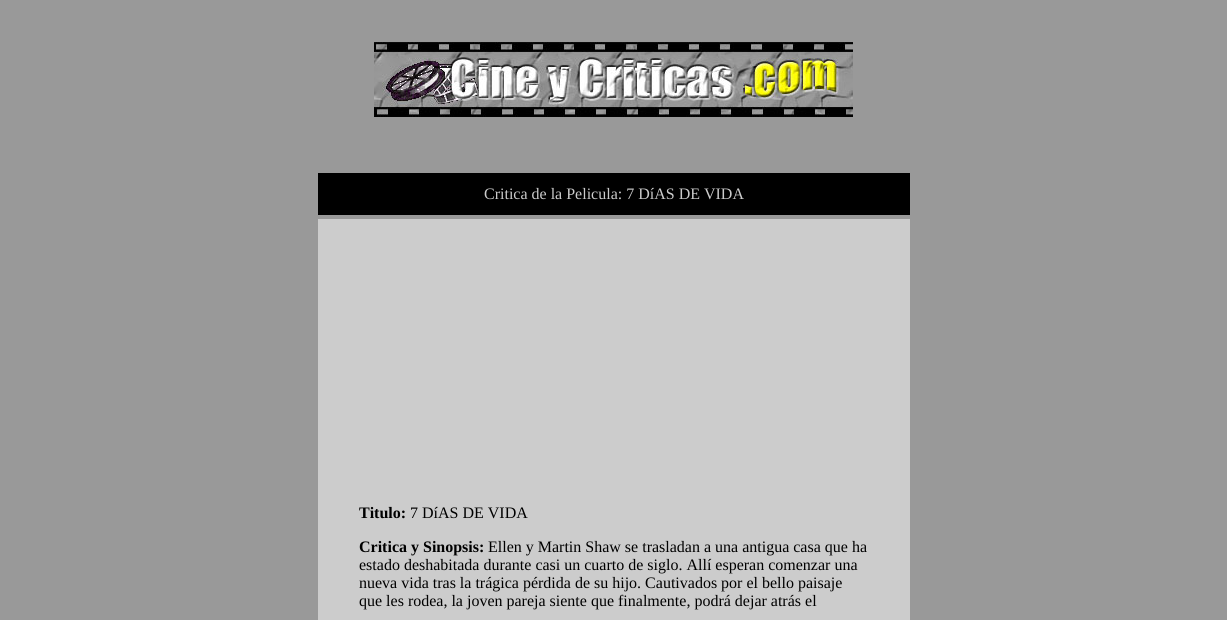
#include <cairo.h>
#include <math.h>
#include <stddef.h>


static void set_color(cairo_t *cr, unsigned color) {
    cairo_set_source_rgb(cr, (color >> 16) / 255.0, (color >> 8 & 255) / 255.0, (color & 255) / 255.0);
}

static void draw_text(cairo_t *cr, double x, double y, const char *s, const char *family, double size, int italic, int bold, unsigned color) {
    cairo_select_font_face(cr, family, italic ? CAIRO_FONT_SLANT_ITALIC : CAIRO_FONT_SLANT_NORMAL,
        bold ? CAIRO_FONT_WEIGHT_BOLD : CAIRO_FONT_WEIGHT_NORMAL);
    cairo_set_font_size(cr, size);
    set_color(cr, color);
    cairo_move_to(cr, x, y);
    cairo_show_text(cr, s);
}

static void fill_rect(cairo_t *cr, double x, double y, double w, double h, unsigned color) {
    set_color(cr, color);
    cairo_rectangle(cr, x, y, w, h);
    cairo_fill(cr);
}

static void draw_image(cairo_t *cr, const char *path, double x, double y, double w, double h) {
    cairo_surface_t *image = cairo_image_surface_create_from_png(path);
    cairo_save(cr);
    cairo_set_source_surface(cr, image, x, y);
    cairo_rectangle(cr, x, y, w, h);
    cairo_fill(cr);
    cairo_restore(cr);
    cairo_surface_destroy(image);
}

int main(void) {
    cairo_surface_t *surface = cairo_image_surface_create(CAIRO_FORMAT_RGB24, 1227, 620);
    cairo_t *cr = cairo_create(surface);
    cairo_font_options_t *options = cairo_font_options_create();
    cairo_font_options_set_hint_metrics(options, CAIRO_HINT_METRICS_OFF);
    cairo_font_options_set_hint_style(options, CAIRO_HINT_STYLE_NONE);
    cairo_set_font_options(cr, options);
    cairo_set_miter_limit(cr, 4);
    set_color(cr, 0x999999);
    cairo_paint(cr);
    draw_image(cr, "assets/img1.png", 374, 42, 479, 75);
    fill_rect(cr, 318, 173, 592, 42, 0x000000);
    draw_text(cr, 484, 199, "Critica de la Pelicula: 7 DíAS DE VIDA", "Liberation Serif", 16, 0, 0, 0xCCCCCC);
    fill_rect(cr, 318, 219, 592, 401, 0xCCCCCC);
    draw_text(cr, 359, 518, "Titulo:", "Liberation Serif", 16, 0, 1, 0x000000);
    draw_text(cr, 410, 518, "7 DíAS DE VIDA", "Liberation Serif", 16, 0, 0, 0x000000);
    draw_text(cr, 359, 552, "Critica y Sinopsis:", "Liberation Serif", 16, 0, 1, 0x000000);
    draw_text(cr, 488, 552, "Ellen y Martin Shaw se trasladan a una antigua casa que ha", "Liberation Serif", 16, 0, 0, 0x000000);
    draw_text(cr, 359, 570, "estado deshabitada durante casi un cuarto de siglo. Allí esperan comenzar una", "Liberation Serif", 16, 0, 0, 0x000000);
    draw_text(cr, 359, 588, "nueva vida tras la trágica pérdida de su hijo. Cautivados por el bello paisaje", "Liberation Serif", 16, 0, 0, 0x000000);
    draw_text(cr, 359, 606, "que les rodea, la joven pareja siente que finalmente, podrá dejar atrás el", "Liberation Serif", 16, 0, 0, 0x000000);
    cairo_surface_write_to_png(surface, "output.png");
    cairo_font_options_destroy(options);
    cairo_destroy(cr);
    cairo_surface_destroy(surface);
    return 0;
}
